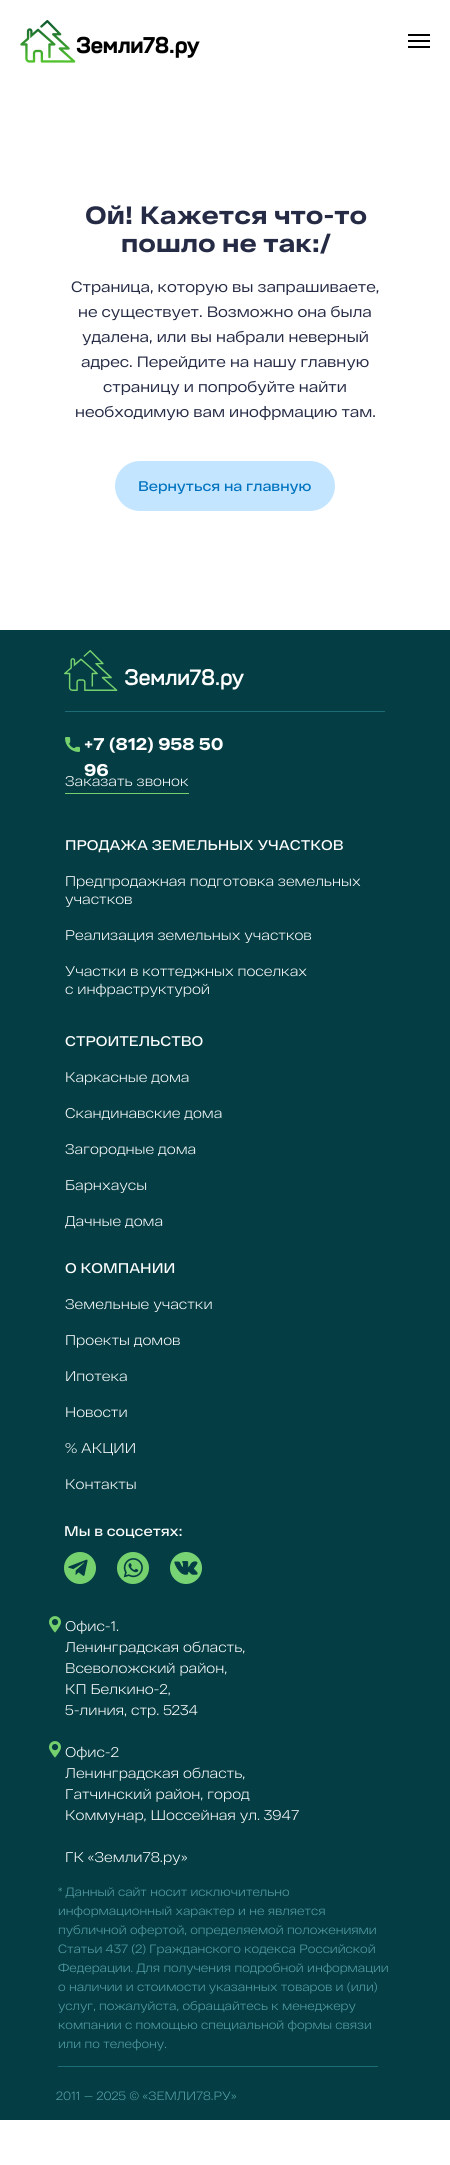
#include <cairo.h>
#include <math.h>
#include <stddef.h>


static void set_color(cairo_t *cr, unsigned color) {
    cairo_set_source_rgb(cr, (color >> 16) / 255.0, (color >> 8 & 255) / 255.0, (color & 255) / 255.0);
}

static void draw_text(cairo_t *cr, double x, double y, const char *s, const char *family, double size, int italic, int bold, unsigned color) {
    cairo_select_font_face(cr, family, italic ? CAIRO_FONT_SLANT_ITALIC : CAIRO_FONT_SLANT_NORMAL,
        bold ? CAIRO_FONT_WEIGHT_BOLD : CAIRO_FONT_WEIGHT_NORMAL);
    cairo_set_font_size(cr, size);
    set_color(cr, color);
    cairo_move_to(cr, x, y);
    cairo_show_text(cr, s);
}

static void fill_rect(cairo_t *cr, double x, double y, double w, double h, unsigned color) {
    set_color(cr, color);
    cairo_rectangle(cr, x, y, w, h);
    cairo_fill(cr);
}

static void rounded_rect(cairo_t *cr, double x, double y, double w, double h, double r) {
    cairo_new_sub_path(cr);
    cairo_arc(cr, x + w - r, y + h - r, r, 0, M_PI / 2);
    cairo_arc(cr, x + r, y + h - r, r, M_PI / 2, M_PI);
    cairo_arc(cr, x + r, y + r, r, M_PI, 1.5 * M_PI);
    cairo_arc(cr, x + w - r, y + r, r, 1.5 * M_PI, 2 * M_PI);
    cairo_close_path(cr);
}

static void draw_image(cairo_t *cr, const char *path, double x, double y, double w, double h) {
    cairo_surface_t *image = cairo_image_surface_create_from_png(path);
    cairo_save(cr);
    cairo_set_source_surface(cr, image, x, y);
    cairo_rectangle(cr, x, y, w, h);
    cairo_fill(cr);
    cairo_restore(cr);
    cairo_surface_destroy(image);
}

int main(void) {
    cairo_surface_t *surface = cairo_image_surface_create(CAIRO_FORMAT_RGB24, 450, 2165);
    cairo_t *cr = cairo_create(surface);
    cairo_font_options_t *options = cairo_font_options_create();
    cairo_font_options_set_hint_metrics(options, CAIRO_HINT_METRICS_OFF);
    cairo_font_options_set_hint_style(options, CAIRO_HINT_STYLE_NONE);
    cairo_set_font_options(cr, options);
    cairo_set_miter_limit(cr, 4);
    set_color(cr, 0xFFFFFF);
    cairo_paint(cr);
    draw_image(cr, "assets/img1.png", 20, 20, 180, 43);
    fill_rect(cr, 408, 34, 22, 2, 0x000000);
    fill_rect(cr, 408, 40, 22, 2, 0x000000);
    fill_rect(cr, 408, 46, 22, 2, 0x000000);
    draw_text(cr, 85, 224, "Ой! Кажется что-то", "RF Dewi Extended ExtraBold", 25, 0, 0, 0x262B45);
    draw_text(cr, 121, 252, "пошло не так:/", "RF Dewi Extended ExtraBold", 25, 0, 0, 0x262B45);
    draw_text(cr, 71, 292, "Страница, которую вы запрашиваете,", "RF Dewi Extended", 15, 0, 0, 0x262B45);
    draw_text(cr, 78, 317, "не существует. Возможно она была", "RF Dewi Extended", 15, 0, 0, 0x262B45);
    draw_text(cr, 82, 342, "удалена, или вы набрали неверный", "RF Dewi Extended", 15, 0, 0, 0x262B45);
    draw_text(cr, 81, 367, "адрес. Перейдите на нашу главную", "RF Dewi Extended", 15, 0, 0, 0x262B45);
    draw_text(cr, 103, 392, "страницу и попробуйте найти", "RF Dewi Extended", 15, 0, 0, 0x262B45);
    draw_text(cr, 75, 417, "необходимую вам инофрмацию там.", "RF Dewi Extended", 15, 0, 0, 0x262B45);
    set_color(cr, 0xC4E5FF);
    rounded_rect(cr, 115, 461, 220, 50, 25);
    cairo_fill(cr);
    draw_text(cr, 138, 491, "Вернуться на главную", "RF Dewi Extended SemiBold", 14, 0, 0, 0x0073BF);
    fill_rect(cr, 0, 630, 450, 1490, 0x043E44);
    draw_image(cr, "assets/img2.png", 64, 650, 180, 41);
    fill_rect(cr, 65, 711, 320, 1, 0x1D6C75);
    draw_image(cr, "assets/img3.png", 65, 737, 15, 15);
    draw_text(cr, 84, 750, "+7 (812) 958 50", "RF Dewi Extended ExtraBold", 17, 0, 0, 0xFFFFFF);
    draw_text(cr, 84, 776, "96", "RF Dewi Extended ExtraBold", 17, 0, 0, 0xFFFFFF);
    draw_text(cr, 65, 786, "Заказать звонок", "RF Dewi Extended Light", 14, 0, 0, 0xFFFFFF);
    fill_rect(cr, 65, 793, 124, 1, 0x75D16D);
    draw_text(cr, 65, 850, "ПРОДАЖА ЗЕМЕЛЬНЫХ УЧАСТКОВ", "RF Dewi Extended SemiBold", 14, 0, 0, 0xFFFFFF);
    draw_text(cr, 65, 886, "Предпродажная подготовка земельных", "RF Dewi Extended Light", 14, 0, 0, 0xFFFFFF);
    draw_text(cr, 65, 904, "участков", "RF Dewi Extended Light", 14, 0, 0, 0xFFFFFF);
    draw_text(cr, 65, 940, "Реализация земельных участков", "RF Dewi Extended Light", 14, 0, 0, 0xFFFFFF);
    draw_text(cr, 65, 976, "Участки в коттеджных поселках", "RF Dewi Extended Light", 14, 0, 0, 0xFFFFFF);
    draw_text(cr, 65, 994, "с инфраструктурой", "RF Dewi Extended Light", 14, 0, 0, 0xFFFFFF);
    draw_text(cr, 65, 1046, "СТРОИТЕЛЬСТВО", "RF Dewi Extended SemiBold", 14, 0, 0, 0xFFFFFF);
    draw_text(cr, 65, 1082, "Каркасные дома", "RF Dewi Extended Light", 14, 0, 0, 0xFFFFFF);
    draw_text(cr, 65, 1118, "Скандинавские дома", "RF Dewi Extended Light", 14, 0, 0, 0xFFFFFF);
    draw_text(cr, 65, 1154, "Загородные дома", "RF Dewi Extended Light", 14, 0, 0, 0xFFFFFF);
    draw_text(cr, 65, 1190, "Барнхаусы", "RF Dewi Extended Light", 14, 0, 0, 0xFFFFFF);
    draw_text(cr, 65, 1226, "Дачные дома", "RF Dewi Extended Light", 14, 0, 0, 0xFFFFFF);
    draw_text(cr, 65, 1273, "О КОМПАНИИ", "RF Dewi Extended SemiBold", 14, 0, 0, 0xFFFFFF);
    draw_text(cr, 65, 1309, "Земельные участки", "RF Dewi Extended Light", 14, 0, 0, 0xFFFFFF);
    draw_text(cr, 65, 1345, "Проекты домов", "RF Dewi Extended Light", 14, 0, 0, 0xFFFFFF);
    draw_text(cr, 65, 1381, "Ипотека", "RF Dewi Extended Light", 14, 0, 0, 0xFFFFFF);
    draw_text(cr, 65, 1417, "Новости", "RF Dewi Extended Light", 14, 0, 0, 0xFFFFFF);
    draw_text(cr, 65, 1453, "% АКЦИИ", "RF Dewi Extended Light", 14, 0, 0, 0xFFFFFF);
    draw_text(cr, 65, 1489, "Контакты", "RF Dewi Extended Light", 14, 0, 0, 0xFFFFFF);
    draw_text(cr, 64, 1536, "Мы в соцсетях:", "RF Dewi Extended SemiBold", 14, 0, 0, 0xFFFFFF);
    draw_image(cr, "assets/img4.png", 64, 1552, 32, 32);
    draw_image(cr, "assets/img5.png", 117, 1552, 32, 32);
    draw_image(cr, "assets/img6.png", 170, 1552, 32, 32);
    draw_image(cr, "assets/img7.png", 49, 1616, 12, 17);
    draw_text(cr, 65, 1631, "Офис-1.", "RF Dewi Extended Light", 14, 0, 0, 0xFFFFFF);
    draw_text(cr, 65, 1652, "Ленинградская область,", "RF Dewi Extended Light", 14, 0, 0, 0xFFFFFF);
    draw_text(cr, 65, 1673, "Всеволожский район,", "RF Dewi Extended Light", 14, 0, 0, 0xFFFFFF);
    draw_text(cr, 65, 1694, "КП Белкино-2,", "RF Dewi Extended Light", 14, 0, 0, 0xFFFFFF);
    draw_text(cr, 65, 1715, "5-линия, стр. 5234", "RF Dewi Extended Light", 14, 0, 0, 0xFFFFFF);
    draw_text(cr, 65, 1757, "Офис-2", "RF Dewi Extended Light", 14, 0, 0, 0xFFFFFF);
    draw_text(cr, 65, 1778, "Ленинградская область,", "RF Dewi Extended Light", 14, 0, 0, 0xFFFFFF);
    draw_text(cr, 65, 1799, "Гатчинский район, город", "RF Dewi Extended Light", 14, 0, 0, 0xFFFFFF);
    draw_text(cr, 65, 1820, "Коммунар, Шоссейная ул. 3947", "RF Dewi Extended Light", 14, 0, 0, 0xFFFFFF);
    draw_text(cr, 65, 1862, "ГК «Земли78.ру»", "RF Dewi Extended Light", 14, 0, 0, 0xFFFFFF);
    draw_image(cr, "assets/img7.png", 49, 1741, 12, 17);
    draw_text(cr, 58, 1896, "* Данный сайт носит исключительно", "RF Dewi Extended Light", 12, 0, 0, 0x56A0A8);
    draw_text(cr, 58, 1915, "информационный характер и не является", "RF Dewi Extended Light", 12, 0, 0, 0x56A0A8);
    draw_text(cr, 58, 1934, "публичной офертой, определяемой положениями", "RF Dewi Extended Light", 12, 0, 0, 0x56A0A8);
    draw_text(cr, 58, 1953, "Статьи 437 (2) Гражданского кодекса Российской", "RF Dewi Extended Light", 12, 0, 0, 0x56A0A8);
    draw_text(cr, 58, 1972, "Федерации. Для получения подробной информации", "RF Dewi Extended Light", 12, 0, 0, 0x56A0A8);
    draw_text(cr, 58, 1991, "о наличии и стоимости указанных товаров и (или)", "RF Dewi Extended Light", 12, 0, 0, 0x56A0A8);
    draw_text(cr, 58, 2010, "услуг, пожалуйста, обращайтесь к менеджеру", "RF Dewi Extended Light", 12, 0, 0, 0x56A0A8);
    draw_text(cr, 58, 2029, "компании с помощью специальной формы связи", "RF Dewi Extended Light", 12, 0, 0, 0x56A0A8);
    draw_text(cr, 58, 2048, "или по телефону.", "RF Dewi Extended Light", 12, 0, 0, 0x56A0A8);
    fill_rect(cr, 58, 2066, 320, 1, 0x1D6C75);
    draw_text(cr, 56, 2100, "2011 — 2025 © «ЗЕМЛИ78.РУ»", "RF Dewi Extended Light", 12, 0, 0, 0x56A0A8);
    cairo_surface_write_to_png(surface, "output.png");
    cairo_font_options_destroy(options);
    cairo_destroy(cr);
    cairo_surface_destroy(surface);
    return 0;
}
